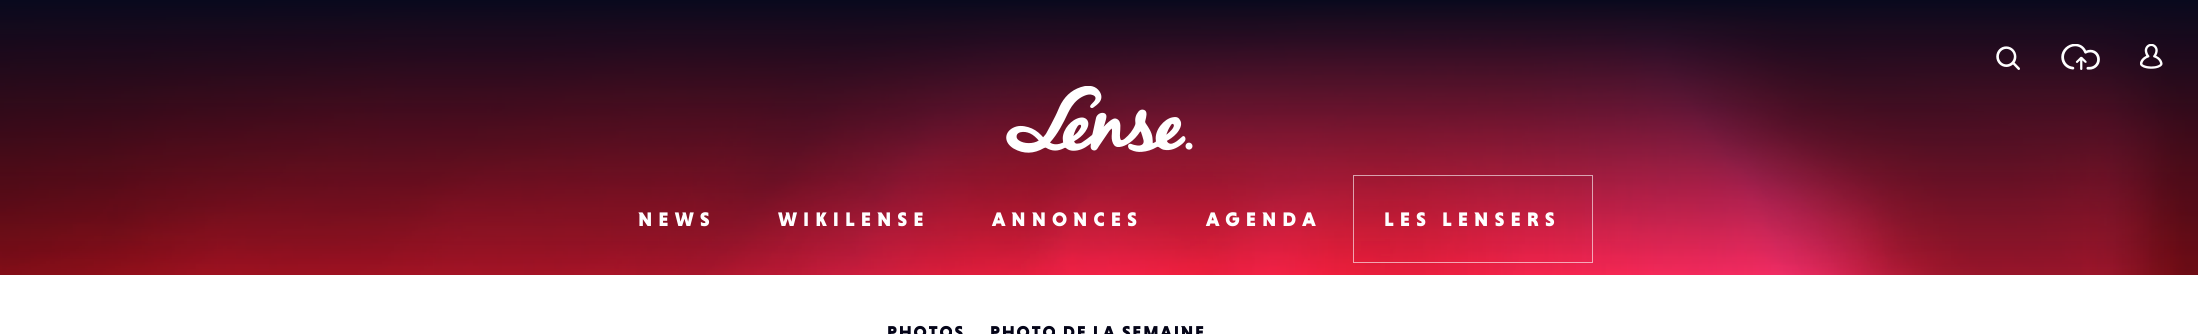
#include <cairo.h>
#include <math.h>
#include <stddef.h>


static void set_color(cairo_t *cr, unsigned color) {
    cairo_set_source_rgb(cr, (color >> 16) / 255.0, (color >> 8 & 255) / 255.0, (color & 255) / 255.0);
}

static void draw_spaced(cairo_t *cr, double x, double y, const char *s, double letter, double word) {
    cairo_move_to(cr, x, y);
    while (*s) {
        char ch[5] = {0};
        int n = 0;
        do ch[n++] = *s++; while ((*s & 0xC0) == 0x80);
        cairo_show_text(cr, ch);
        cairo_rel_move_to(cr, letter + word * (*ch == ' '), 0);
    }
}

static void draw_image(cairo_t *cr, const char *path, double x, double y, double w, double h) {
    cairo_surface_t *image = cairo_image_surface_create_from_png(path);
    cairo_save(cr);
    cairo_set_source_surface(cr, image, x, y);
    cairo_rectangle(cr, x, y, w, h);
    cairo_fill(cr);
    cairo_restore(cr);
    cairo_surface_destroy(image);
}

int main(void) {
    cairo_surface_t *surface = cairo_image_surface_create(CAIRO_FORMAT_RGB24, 2198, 334);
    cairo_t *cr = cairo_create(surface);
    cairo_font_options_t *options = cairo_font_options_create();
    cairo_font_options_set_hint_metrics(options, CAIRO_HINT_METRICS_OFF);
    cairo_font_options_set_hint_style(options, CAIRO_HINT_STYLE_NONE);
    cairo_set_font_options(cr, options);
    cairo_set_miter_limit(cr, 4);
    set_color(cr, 0xFFFFFF);
    cairo_paint(cr);
    draw_image(cr, "assets/img1.png", 0, 0, 2198, 275);
    draw_image(cr, "assets/img2.png", 1996, 46, 24, 24);
    draw_image(cr, "assets/img3.png", 2061, 44, 39, 26);
    draw_image(cr, "assets/img4.png", 2075, 56, 12, 14);
    draw_image(cr, "assets/img5.png", 2140, 44, 23, 25);
    draw_image(cr, "assets/img6.png", 1006, 86, 187, 67);
    cairo_select_font_face(cr, "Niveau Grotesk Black", CAIRO_FONT_SLANT_NORMAL, CAIRO_FONT_WEIGHT_NORMAL);
    cairo_set_font_size(cr, 20);
    set_color(cr, 0xFFFFFF);
    draw_spaced(cr, 638, 226, "NEWS", 6, 0);
    draw_spaced(cr, 778, 226, "WIKILENSE", 6, 0);
    draw_spaced(cr, 992, 226, "ANNONCES", 6, 0);
    draw_spaced(cr, 1206, 226, "AGENDA", 6, 0);
    cairo_rectangle(cr, 1353.5, 175.5, 239, 87);
    cairo_set_source_rgba(cr, 1, 1, 1, 0.6);
    cairo_set_line_width(cr, 1);
    cairo_stroke(cr);
    set_color(cr, 0xFFFFFF);
    draw_spaced(cr, 1384, 226, "LES LENSERS", 6, 0);
    cairo_set_font_size(cr, 17.5);
    set_color(cr, 0x040418);
    draw_spaced(cr, 887, 338, "PHOTOS", 1.75, 0);
    draw_spaced(cr, 990, 338, "PHOTO DE LA SEMAINE", 1.75, 0);
    cairo_surface_write_to_png(surface, "output.png");
    cairo_font_options_destroy(options);
    cairo_destroy(cr);
    cairo_surface_destroy(surface);
    return 0;
}
